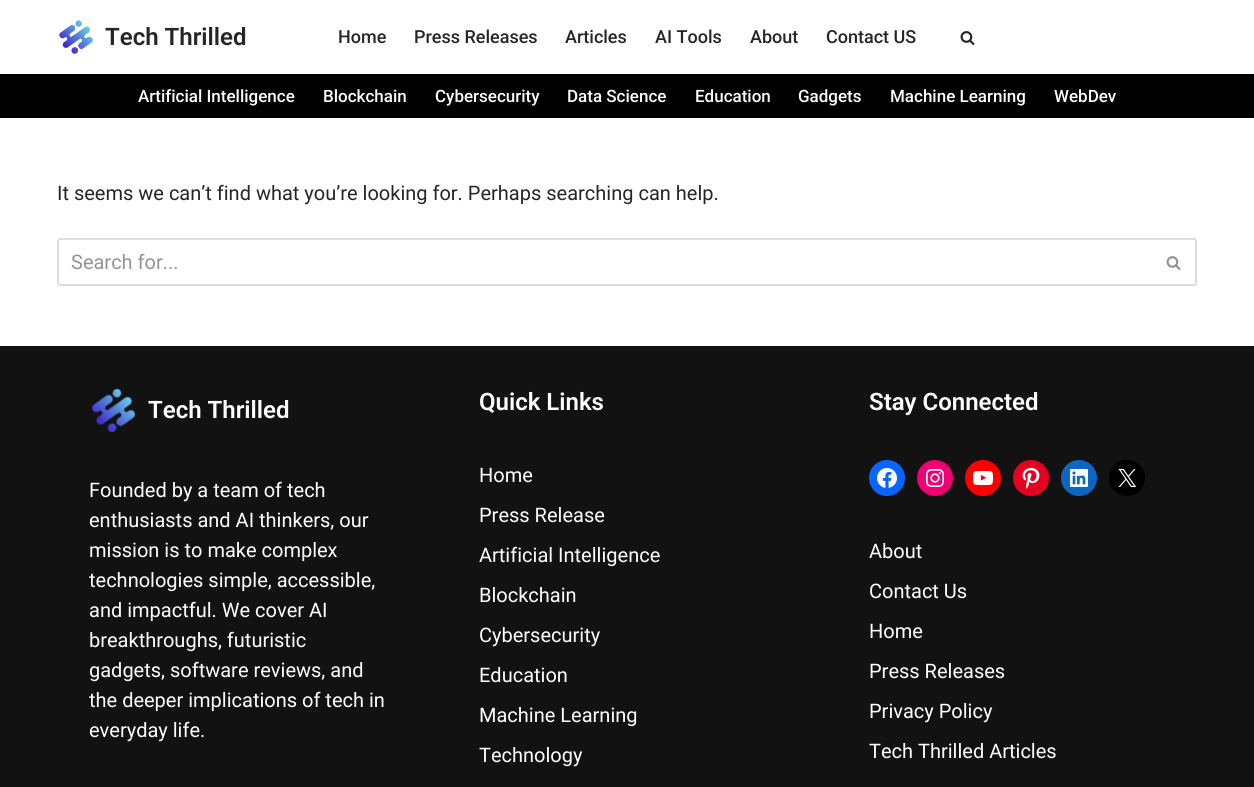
#include <cairo.h>
#include <math.h>
#include <stddef.h>


static void set_color(cairo_t *cr, unsigned color) {
    cairo_set_source_rgb(cr, (color >> 16) / 255.0, (color >> 8 & 255) / 255.0, (color & 255) / 255.0);
}

static void draw_text(cairo_t *cr, double x, double y, const char *s, const char *family, double size, int italic, int bold, unsigned color) {
    cairo_select_font_face(cr, family, italic ? CAIRO_FONT_SLANT_ITALIC : CAIRO_FONT_SLANT_NORMAL,
        bold ? CAIRO_FONT_WEIGHT_BOLD : CAIRO_FONT_WEIGHT_NORMAL);
    cairo_set_font_size(cr, size);
    set_color(cr, color);
    cairo_move_to(cr, x, y);
    cairo_show_text(cr, s);
}

static void fill_rect(cairo_t *cr, double x, double y, double w, double h, unsigned color) {
    set_color(cr, color);
    cairo_rectangle(cr, x, y, w, h);
    cairo_fill(cr);
}

static void draw_image(cairo_t *cr, const char *path, double x, double y, double w, double h) {
    cairo_surface_t *image = cairo_image_surface_create_from_png(path);
    cairo_save(cr);
    cairo_set_source_surface(cr, image, x, y);
    cairo_rectangle(cr, x, y, w, h);
    cairo_fill(cr);
    cairo_restore(cr);
    cairo_surface_destroy(image);
}

int main(void) {
    cairo_surface_t *surface = cairo_image_surface_create(CAIRO_FORMAT_RGB24, 1254, 787);
    cairo_t *cr = cairo_create(surface);
    cairo_font_options_t *options = cairo_font_options_create();
    cairo_font_options_set_hint_metrics(options, CAIRO_HINT_METRICS_OFF);
    cairo_font_options_set_hint_style(options, CAIRO_HINT_STYLE_NONE);
    cairo_set_font_options(cr, options);
    cairo_set_miter_limit(cr, 4);
    set_color(cr, 0xFFFFFF);
    cairo_paint(cr);
    draw_image(cr, "assets/img1.png", 59, 20, 34, 34);
    draw_text(cr, 105, 45, "Tech Thrilled", "Roboto SemiBold", 24, 0, 0, 0x272626);
    draw_text(cr, 338, 43, "Home", "Roboto Medium", 18, 0, 0, 0x272626);
    draw_text(cr, 414, 43, "Press Releases", "Roboto Medium", 18, 0, 0, 0x272626);
    draw_text(cr, 565, 43, "Articles", "Roboto Medium", 18, 0, 0, 0x272626);
    draw_text(cr, 655, 43, "AI Tools", "Roboto Medium", 18, 0, 0, 0x272626);
    draw_text(cr, 750, 43, "About", "Roboto Medium", 18, 0, 0, 0x272626);
    draw_text(cr, 826, 43, "Contact US", "Roboto Medium", 18, 0, 0, 0x272626);
    draw_image(cr, "assets/img2.png", 960, 31, 15, 14);
    fill_rect(cr, 0, 74, 1254, 44, 0x000000);
    draw_text(cr, 138, 102, "Artificial Intelligence", "Roboto Medium", 17, 0, 0, 0xFFFFFF);
    draw_text(cr, 323, 102, "Blockchain", "Roboto Medium", 17, 0, 0, 0xFFFFFF);
    draw_text(cr, 435, 102, "Cybersecurity", "Roboto Medium", 17, 0, 0, 0xFFFFFF);
    draw_text(cr, 567, 102, "Data Science", "Roboto Medium", 17, 0, 0, 0xFFFFFF);
    draw_text(cr, 695, 102, "Education", "Roboto Medium", 17, 0, 0, 0xFFFFFF);
    draw_text(cr, 798, 102, "Gadgets", "Roboto Medium", 17, 0, 0, 0xFFFFFF);
    draw_text(cr, 890, 102, "Machine Learning", "Roboto Medium", 17, 0, 0, 0xFFFFFF);
    draw_text(cr, 1054, 102, "WebDev", "Roboto Medium", 17, 0, 0, 0xFFFFFF);
    draw_text(cr, 57, 200, "It seems we can’t find what you’re looking for. Perhaps searching can help.", "Roboto", 20, 0, 0, 0x272626);
    set_color(cr, 0xDDDDDD);
    cairo_set_fill_rule(cr, CAIRO_FILL_RULE_EVEN_ODD);
    cairo_new_path(cr);
    cairo_move_to(cr, 60, 238);
    cairo_line_to(cr, 1152, 238);
    cairo_line_to(cr, 1152, 286);
    cairo_line_to(cr, 60, 286);
    cairo_curve_to(cr, 58, 286, 57, 285, 57, 283);
    cairo_line_to(cr, 57, 241);
    cairo_curve_to(cr, 57, 239, 58, 238, 60, 238);
    cairo_close_path(cr);
    cairo_move_to(cr, 60, 240);
    cairo_line_to(cr, 1152, 240);
    cairo_line_to(cr, 1152, 284);
    cairo_line_to(cr, 60, 284);
    cairo_curve_to(cr, 59, 284, 59, 284, 59, 283);
    cairo_line_to(cr, 59, 241);
    cairo_curve_to(cr, 59, 240, 59, 240, 60, 240);
    cairo_close_path(cr);
    cairo_fill(cr);
    draw_text(cr, 71, 269, "Search for...", "Roboto", 20, 0, 0, 0x939393);
    set_color(cr, 0xDDDDDD);
    cairo_new_path(cr);
    cairo_move_to(cr, 1152, 238);
    cairo_line_to(cr, 1194, 238);
    cairo_curve_to(cr, 1196, 238, 1197, 239, 1197, 241);
    cairo_line_to(cr, 1197, 283);
    cairo_curve_to(cr, 1197, 285, 1196, 286, 1194, 286);
    cairo_line_to(cr, 1152, 286);
    cairo_close_path(cr);
    cairo_move_to(cr, 1152, 240);
    cairo_line_to(cr, 1194, 240);
    cairo_curve_to(cr, 1195, 240, 1195, 240, 1195, 241);
    cairo_line_to(cr, 1195, 283);
    cairo_curve_to(cr, 1195, 284, 1195, 284, 1194, 284);
    cairo_line_to(cr, 1152, 284);
    cairo_close_path(cr);
    cairo_fill(cr);
    draw_image(cr, "assets/img3.png", 1166, 256, 15, 14);
    fill_rect(cr, 0, 346, 1254, 441, 0x121212);
    draw_image(cr, "assets/img4.png", 92, 389, 44, 44);
    draw_text(cr, 148, 418, "Tech Thrilled", "Roboto SemiBold", 24, 0, 0, 0xFFFFFF);
    draw_text(cr, 89, 497, "Founded by a team of tech", "Roboto", 20, 0, 0, 0xFFFFFF);
    draw_text(cr, 89, 527, "enthusiasts and AI thinkers, our", "Roboto", 20, 0, 0, 0xFFFFFF);
    draw_text(cr, 89, 557, "mission is to make complex", "Roboto", 20, 0, 0, 0xFFFFFF);
    draw_text(cr, 89, 587, "technologies simple, accessible,", "Roboto", 20, 0, 0, 0xFFFFFF);
    draw_text(cr, 89, 617, "and impactful. We cover AI", "Roboto", 20, 0, 0, 0xFFFFFF);
    draw_text(cr, 89, 647, "breakthroughs, futuristic", "Roboto", 20, 0, 0, 0xFFFFFF);
    draw_text(cr, 89, 677, "gadgets, software reviews, and", "Roboto", 20, 0, 0, 0xFFFFFF);
    draw_text(cr, 89, 707, "the deeper implications of tech in", "Roboto", 20, 0, 0, 0xFFFFFF);
    draw_text(cr, 89, 737, "everyday life.", "Roboto", 20, 0, 0, 0xFFFFFF);
    draw_text(cr, 479, 410, "Quick Links", "Roboto SemiBold", 24, 0, 0, 0xFFFFFF);
    draw_text(cr, 479, 482, "Home", "Roboto", 20, 0, 0, 0xFFFFFF);
    draw_text(cr, 479, 522, "Press Release", "Roboto", 20, 0, 0, 0xFFFFFF);
    draw_text(cr, 479, 562, "Artificial Intelligence", "Roboto", 20, 0, 0, 0xFFFFFF);
    draw_text(cr, 479, 602, "Blockchain", "Roboto", 20, 0, 0, 0xFFFFFF);
    draw_text(cr, 479, 642, "Cybersecurity", "Roboto", 20, 0, 0, 0xFFFFFF);
    draw_text(cr, 479, 682, "Education", "Roboto", 20, 0, 0, 0xFFFFFF);
    draw_text(cr, 479, 722, "Machine Learning", "Roboto", 20, 0, 0, 0xFFFFFF);
    draw_text(cr, 479, 762, "Technology", "Roboto", 20, 0, 0, 0xFFFFFF);
    draw_text(cr, 869, 410, "Stay Connected", "Roboto SemiBold", 24, 0, 0, 0xFFFFFF);
    set_color(cr, 0x0866FF);
    cairo_new_path(cr);
    cairo_arc(cr, 887, 478, 18, 0, 2 * M_PI);
    cairo_fill(cr);
    draw_image(cr, "assets/img5.png", 877, 468, 20, 20);
    set_color(cr, 0xF00075);
    cairo_arc(cr, 935, 478, 18, 0, 2 * M_PI);
    cairo_fill(cr);
    draw_image(cr, "assets/img6.png", 926, 469, 18, 18);
    set_color(cr, 0xFF0000);
    cairo_arc(cr, 983, 478, 18, 0, 2 * M_PI);
    cairo_fill(cr);
    draw_image(cr, "assets/img7.png", 973, 471, 20, 14);
    set_color(cr, 0xE60122);
    cairo_arc(cr, 1031, 478, 18, 0, 2 * M_PI);
    cairo_fill(cr);
    draw_image(cr, "assets/img8.png", 1022, 468, 18, 21);
    set_color(cr, 0x0D66C2);
    cairo_arc(cr, 1079, 478, 18, 0, 2 * M_PI);
    cairo_fill(cr);
    draw_image(cr, "assets/img9.png", 1070, 469, 18, 18);
    set_color(cr, 0x000000);
    cairo_arc(cr, 1127, 478, 18, 0, 2 * M_PI);
    cairo_fill(cr);
    draw_image(cr, "assets/img10.png", 1118, 469, 18, 18);
    draw_text(cr, 869, 558, "About", "Roboto", 20, 0, 0, 0xFFFFFF);
    draw_text(cr, 869, 598, "Contact Us", "Roboto", 20, 0, 0, 0xFFFFFF);
    draw_text(cr, 869, 638, "Home", "Roboto", 20, 0, 0, 0xFFFFFF);
    draw_text(cr, 869, 678, "Press Releases", "Roboto", 20, 0, 0, 0xFFFFFF);
    draw_text(cr, 869, 718, "Privacy Policy", "Roboto", 20, 0, 0, 0xFFFFFF);
    draw_text(cr, 869, 758, "Tech Thrilled Articles", "Roboto", 20, 0, 0, 0xFFFFFF);
    cairo_surface_write_to_png(surface, "output.png");
    cairo_font_options_destroy(options);
    cairo_destroy(cr);
    cairo_surface_destroy(surface);
    return 0;
}
